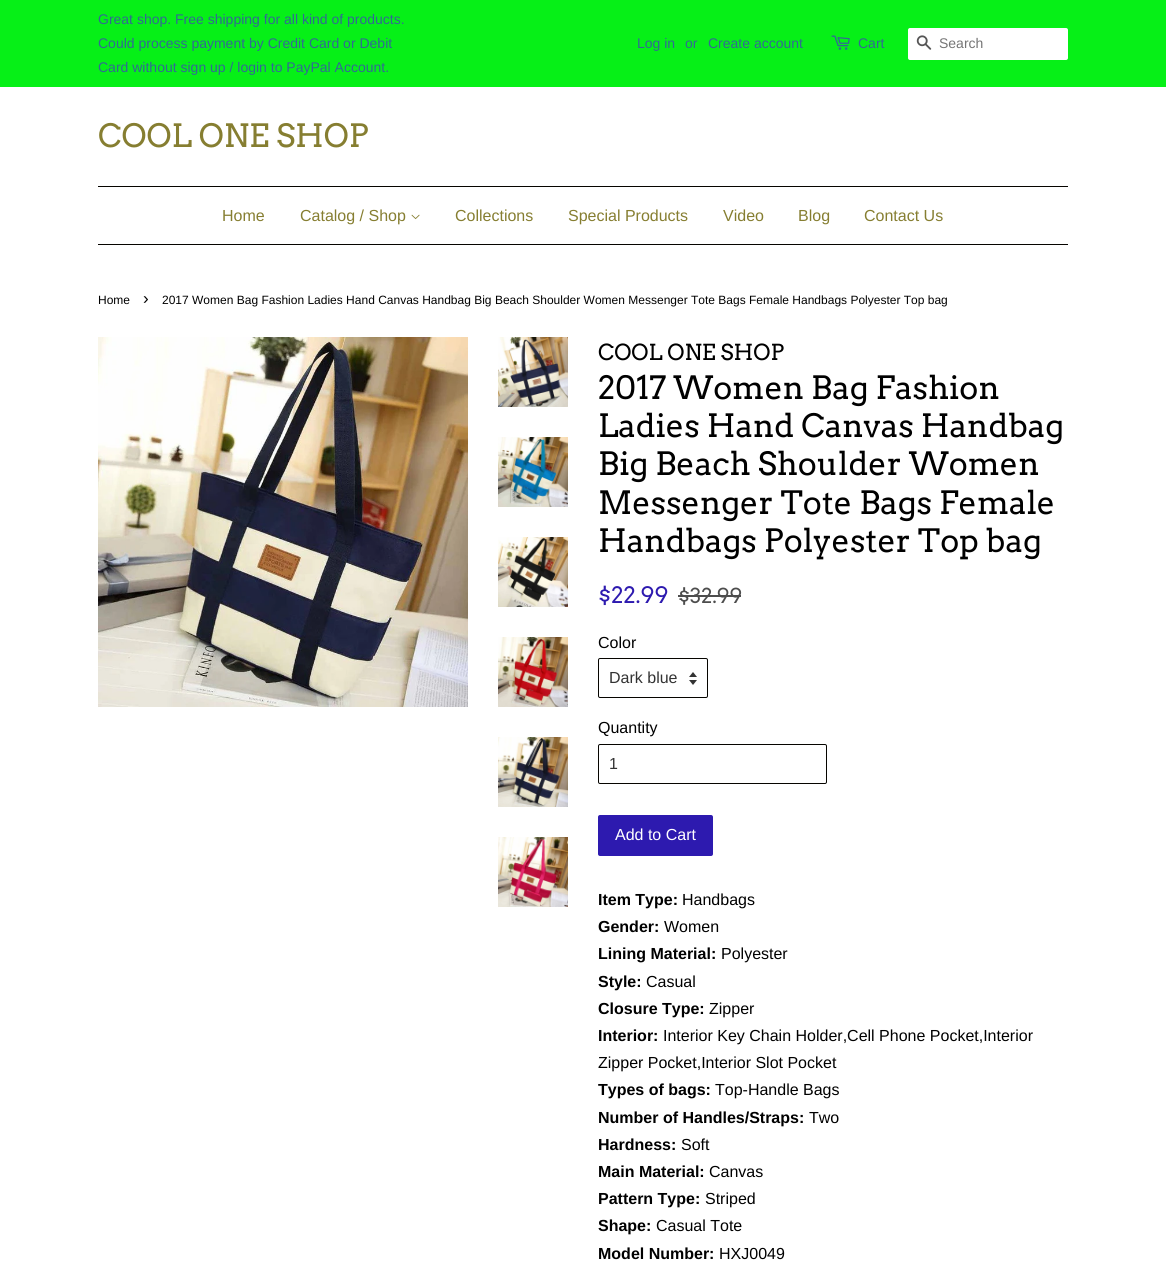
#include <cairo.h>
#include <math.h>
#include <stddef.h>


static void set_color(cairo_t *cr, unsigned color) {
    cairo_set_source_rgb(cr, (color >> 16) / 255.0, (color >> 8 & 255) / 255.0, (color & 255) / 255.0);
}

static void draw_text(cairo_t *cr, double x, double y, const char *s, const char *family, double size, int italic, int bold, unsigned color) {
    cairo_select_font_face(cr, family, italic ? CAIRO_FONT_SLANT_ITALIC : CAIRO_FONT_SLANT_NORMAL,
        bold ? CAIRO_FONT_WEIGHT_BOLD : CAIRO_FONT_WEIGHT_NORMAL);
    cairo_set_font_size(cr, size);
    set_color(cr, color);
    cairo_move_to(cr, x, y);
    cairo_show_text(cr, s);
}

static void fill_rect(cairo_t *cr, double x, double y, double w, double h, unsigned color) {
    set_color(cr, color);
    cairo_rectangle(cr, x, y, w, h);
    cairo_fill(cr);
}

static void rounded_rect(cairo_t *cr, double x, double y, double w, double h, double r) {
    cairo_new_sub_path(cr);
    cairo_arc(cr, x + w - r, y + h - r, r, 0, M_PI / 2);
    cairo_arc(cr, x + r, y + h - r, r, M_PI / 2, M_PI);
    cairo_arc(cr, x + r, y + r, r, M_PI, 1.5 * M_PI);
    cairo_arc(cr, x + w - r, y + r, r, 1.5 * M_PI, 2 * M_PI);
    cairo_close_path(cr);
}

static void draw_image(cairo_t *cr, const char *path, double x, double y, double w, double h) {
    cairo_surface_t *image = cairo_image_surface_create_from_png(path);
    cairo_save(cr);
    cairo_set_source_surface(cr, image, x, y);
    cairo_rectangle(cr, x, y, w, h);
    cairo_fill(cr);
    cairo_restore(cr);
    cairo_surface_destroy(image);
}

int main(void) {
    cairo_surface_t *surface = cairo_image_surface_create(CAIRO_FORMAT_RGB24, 1166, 1268);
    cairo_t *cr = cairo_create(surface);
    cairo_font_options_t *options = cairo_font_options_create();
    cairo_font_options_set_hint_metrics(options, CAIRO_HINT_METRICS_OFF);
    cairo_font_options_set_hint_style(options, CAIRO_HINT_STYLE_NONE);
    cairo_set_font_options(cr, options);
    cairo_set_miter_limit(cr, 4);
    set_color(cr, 0xFFFFFF);
    cairo_paint(cr);
    fill_rect(cr, 0, 0, 1166, 87, 0x06F017);
    draw_text(cr, 98, 24, "Great shop. Free shipping for all kind of products.", "Liberation Sans", 14, 0, 0, 0x326994);
    draw_text(cr, 98, 48, "Could process payment by Credit Card or Debit", "Liberation Sans", 14, 0, 0, 0x326994);
    draw_text(cr, 98, 72, "Card without sign up / login to PayPal Account.", "Liberation Sans", 14, 0, 0, 0x326994);
    draw_text(cr, 637, 48, "Log in", "Liberation Sans", 14, 0, 0, 0x326994);
    draw_text(cr, 685, 48, "or", "Liberation Sans", 14, 0, 0, 0x326994);
    draw_text(cr, 708, 48, "Create account", "Liberation Sans", 14, 0, 0, 0x326994);
    draw_image(cr, "assets/img1.png", 831, 35, 19, 15);
    draw_text(cr, 858, 48, "Cart", "Liberation Sans", 14, 0, 0, 0x326994);
    set_color(cr, 0xFFFFFF);
    rounded_rect(cr, 908, 28, 160, 32, 2);
    cairo_fill(cr);
    draw_image(cr, "assets/img2.png", 916, 35, 16, 15);
    draw_text(cr, 939, 48, "Search", "Liberation Sans", 14, 0, 0, 0x757575);
    draw_text(cr, 98, 147, "COOL ONE SHOP", "Arvo", 32, 0, 0, 0x867E31);
    fill_rect(cr, 98, 186, 970, 1, 0x060400);
    fill_rect(cr, 98, 244, 970, 1, 0x060400);
    draw_text(cr, 222, 221, "Home", "Liberation Sans", 16, 0, 0, 0x867E31);
    draw_text(cr, 300, 221, "Catalog / Shop", "Liberation Sans", 16, 0, 0, 0x867E31);
    draw_image(cr, "assets/img3.png", 411, 214, 9, 6);
    draw_text(cr, 455, 221, "Collections", "Liberation Sans", 16, 0, 0, 0x867E31);
    draw_text(cr, 568, 221, "Special Products", "Liberation Sans", 16, 0, 0, 0x867E31);
    draw_text(cr, 723, 221, "Video", "Liberation Sans", 16, 0, 0, 0x867E31);
    draw_text(cr, 798, 221, "Blog", "Liberation Sans", 16, 0, 0, 0x867E31);
    draw_text(cr, 864, 221, "Contact Us", "Liberation Sans", 16, 0, 0, 0x867E31);
    draw_text(cr, 98, 304, "Home", "Liberation Sans", 12, 0, 0, 0x000000);
    draw_text(cr, 143, 304, "›", "Liberation Sans", 17, 0, 0, 0x000000);
    draw_text(cr, 162, 304, "2017 Women Bag Fashion Ladies Hand Canvas Handbag Big Beach Shoulder Women Messenger Tote Bags Female Handbags Polyester Top bag", "Liberation Sans", 12, 0, 0, 0x000000);
    draw_image(cr, "assets/img4.png", 98, 337, 370, 370);
    draw_image(cr, "assets/img5.png", 498, 337, 70, 70);
    draw_image(cr, "assets/img6.png", 498, 437, 70, 70);
    draw_image(cr, "assets/img7.png", 498, 537, 70, 70);
    draw_image(cr, "assets/img8.png", 498, 637, 70, 70);
    draw_image(cr, "assets/img9.png", 498, 737, 70, 70);
    draw_image(cr, "assets/img10.png", 498, 837, 70, 70);
    draw_text(cr, 598, 360, "COOL ONE SHOP", "Arvo", 22, 0, 0, 0x000000);
    draw_text(cr, 598, 399, "2017 Women Bag Fashion", "Arvo", 32, 0, 0, 0x000000);
    draw_text(cr, 598, 437, "Ladies Hand Canvas Handbag", "Arvo", 32, 0, 0, 0x000000);
    draw_text(cr, 598, 475, "Big Beach Shoulder Women", "Arvo", 32, 0, 0, 0x000000);
    draw_text(cr, 598, 514, "Messenger Tote Bags Female", "Arvo", 32, 0, 0, 0x000000);
    draw_text(cr, 598, 552, "Handbags Polyester Top bag", "Arvo", 32, 0, 0, 0x000000);
    draw_text(cr, 598, 603, "$22.99", "Arvo", 22.5, 0, 0, 0x2D1AAF);
    draw_text(cr, 678, 603, "$32.99", "Arvo", 20.5, 0, 0, 0x4D4D4D);
    fill_rect(cr, 678, 595, 63, 2, 0x4D4D4D);
    draw_text(cr, 598, 648, "Color", "Liberation Sans", 16, 0, 0, 0x000000);
    draw_image(cr, "assets/img11.png", 689, 672, 8, 13);
    rounded_rect(cr, 598.5, 658.5, 109, 39, 1.5);
    set_color(cr, 0x060400);
    cairo_set_line_width(cr, 1);
    cairo_stroke(cr);
    draw_text(cr, 609, 683, "Dark blue", "Liberation Sans", 16, 0, 0, 0x333333);
    draw_text(cr, 598, 733, "Quantity", "Liberation Sans", 16, 0, 0, 0x000000);
    rounded_rect(cr, 598.5, 744.5, 228, 39, 1.5);
    set_color(cr, 0x060400);
    cairo_stroke(cr);
    draw_text(cr, 609, 769, "1", "Liberation Sans", 16, 0, 0, 0x333333);
    set_color(cr, 0x2D1AAF);
    rounded_rect(cr, 598, 815, 115, 41, 2);
    cairo_fill(cr);
    draw_text(cr, 615, 840, "Add to Cart", "Liberation Sans", 16, 0, 0, 0xFFFFFF);
    draw_text(cr, 598, 905, "Item Type:", "Liberation Sans", 16, 0, 1, 0x000000);
    draw_text(cr, 682, 905, "Handbags", "Liberation Sans", 16, 0, 0, 0x000000);
    draw_text(cr, 598, 932, "Gender:", "Liberation Sans", 16, 0, 1, 0x000000);
    draw_text(cr, 664, 932, "Women", "Liberation Sans", 16, 0, 0, 0x000000);
    draw_text(cr, 598, 959, "Lining Material:", "Liberation Sans", 16, 0, 1, 0x000000);
    draw_text(cr, 721, 959, "Polyester", "Liberation Sans", 16, 0, 0, 0x000000);
    draw_text(cr, 598, 987, "Style:", "Liberation Sans", 16, 0, 1, 0x000000);
    draw_text(cr, 646, 987, "Casual", "Liberation Sans", 16, 0, 0, 0x000000);
    draw_text(cr, 598, 1014, "Closure Type:", "Liberation Sans", 16, 0, 1, 0x000000);
    draw_text(cr, 709, 1014, "Zipper", "Liberation Sans", 16, 0, 0, 0x000000);
    draw_text(cr, 598, 1041, "Interior:", "Liberation Sans", 16, 0, 1, 0x000000);
    draw_text(cr, 663, 1041, "Interior Key Chain Holder,Cell Phone Pocket,Interior", "Liberation Sans", 16, 0, 0, 0x000000);
    draw_text(cr, 598, 1068, "Zipper Pocket,Interior Slot Pocket", "Liberation Sans", 16, 0, 0, 0x000000);
    draw_text(cr, 598, 1095, "Types of bags:", "Liberation Sans", 16, 0, 1, 0x000000);
    draw_text(cr, 715, 1095, "Top-Handle Bags", "Liberation Sans", 16, 0, 0, 0x000000);
    draw_text(cr, 598, 1123, "Number of Handles/Straps:", "Liberation Sans", 16, 0, 1, 0x000000);
    draw_text(cr, 809, 1123, "Two", "Liberation Sans", 16, 0, 0, 0x000000);
    draw_text(cr, 598, 1150, "Hardness:", "Liberation Sans", 16, 0, 1, 0x000000);
    draw_text(cr, 681, 1150, "Soft", "Liberation Sans", 16, 0, 0, 0x000000);
    draw_text(cr, 598, 1177, "Main Material:", "Liberation Sans", 16, 0, 1, 0x000000);
    draw_text(cr, 709, 1177, "Canvas", "Liberation Sans", 16, 0, 0, 0x000000);
    draw_text(cr, 598, 1204, "Pattern Type:", "Liberation Sans", 16, 0, 1, 0x000000);
    draw_text(cr, 705, 1204, "Striped", "Liberation Sans", 16, 0, 0, 0x000000);
    draw_text(cr, 598, 1231, "Shape:", "Liberation Sans", 16, 0, 1, 0x000000);
    draw_text(cr, 656, 1231, "Casual Tote", "Liberation Sans", 16, 0, 0, 0x000000);
    draw_text(cr, 598, 1259, "Model Number:", "Liberation Sans", 16, 0, 1, 0x000000);
    draw_text(cr, 719, 1259, "HXJ0049", "Liberation Sans", 16, 0, 0, 0x000000);
    cairo_surface_write_to_png(surface, "output.png");
    cairo_font_options_destroy(options);
    cairo_destroy(cr);
    cairo_surface_destroy(surface);
    return 0;
}
